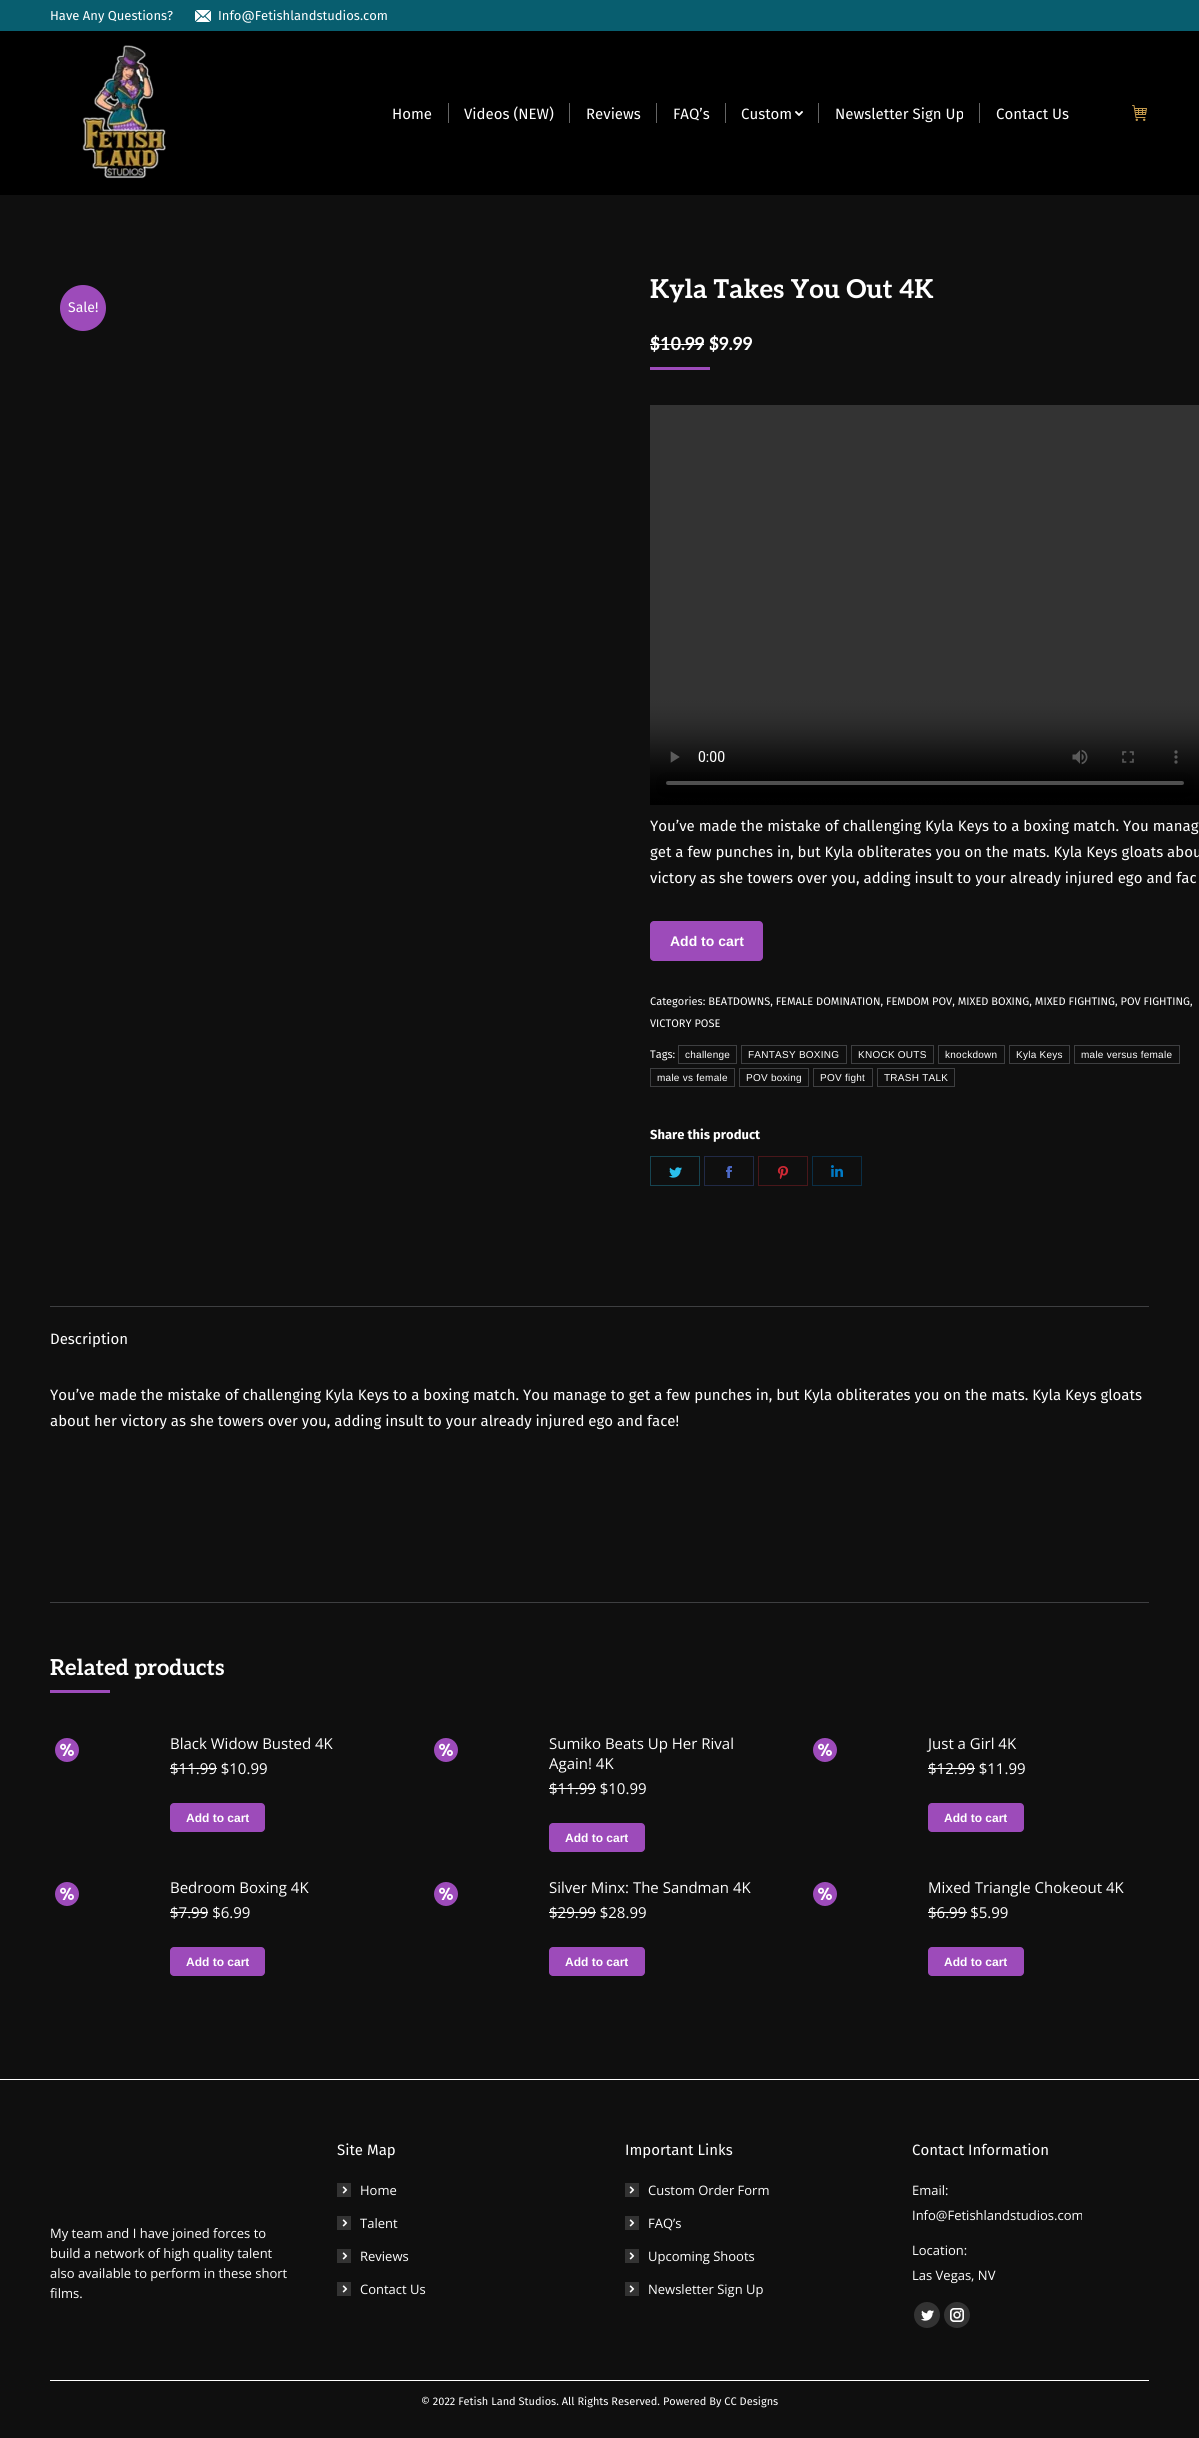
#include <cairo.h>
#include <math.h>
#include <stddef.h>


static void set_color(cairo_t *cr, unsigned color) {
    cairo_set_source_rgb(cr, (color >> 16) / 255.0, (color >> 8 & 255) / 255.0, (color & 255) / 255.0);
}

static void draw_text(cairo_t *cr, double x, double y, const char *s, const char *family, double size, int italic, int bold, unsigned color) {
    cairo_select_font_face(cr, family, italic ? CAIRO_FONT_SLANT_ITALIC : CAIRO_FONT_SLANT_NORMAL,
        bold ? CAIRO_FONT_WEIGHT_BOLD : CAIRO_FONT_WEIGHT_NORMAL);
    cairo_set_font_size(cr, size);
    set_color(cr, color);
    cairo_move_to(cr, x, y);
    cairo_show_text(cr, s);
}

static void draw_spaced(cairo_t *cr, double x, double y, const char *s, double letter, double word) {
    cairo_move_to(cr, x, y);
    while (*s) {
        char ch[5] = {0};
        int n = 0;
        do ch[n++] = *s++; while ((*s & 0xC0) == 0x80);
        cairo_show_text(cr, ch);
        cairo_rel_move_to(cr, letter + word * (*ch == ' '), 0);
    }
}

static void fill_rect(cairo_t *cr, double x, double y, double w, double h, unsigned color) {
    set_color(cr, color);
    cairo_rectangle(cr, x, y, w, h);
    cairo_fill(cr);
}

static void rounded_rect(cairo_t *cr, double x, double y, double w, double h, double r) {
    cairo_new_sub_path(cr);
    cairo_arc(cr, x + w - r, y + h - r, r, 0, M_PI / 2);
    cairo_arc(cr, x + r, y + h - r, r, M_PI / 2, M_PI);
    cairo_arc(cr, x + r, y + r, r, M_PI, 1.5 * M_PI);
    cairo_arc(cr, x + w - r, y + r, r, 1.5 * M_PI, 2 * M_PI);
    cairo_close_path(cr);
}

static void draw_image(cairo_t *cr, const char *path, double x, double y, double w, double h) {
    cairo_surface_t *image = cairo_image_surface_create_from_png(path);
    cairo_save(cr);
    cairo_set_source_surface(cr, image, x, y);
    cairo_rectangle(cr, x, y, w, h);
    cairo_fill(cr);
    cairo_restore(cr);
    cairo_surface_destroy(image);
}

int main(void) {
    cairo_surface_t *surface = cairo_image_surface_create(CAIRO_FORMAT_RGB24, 1199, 2438);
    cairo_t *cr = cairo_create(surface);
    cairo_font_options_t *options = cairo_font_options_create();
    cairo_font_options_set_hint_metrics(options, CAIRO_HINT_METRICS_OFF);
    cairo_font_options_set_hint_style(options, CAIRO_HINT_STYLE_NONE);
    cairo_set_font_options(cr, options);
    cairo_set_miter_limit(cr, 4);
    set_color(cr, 0x0F0F0F);
    cairo_paint(cr);
    fill_rect(cr, 0, 31, 1199, 164, 0x000000);
    fill_rect(cr, 0, 0, 1199, 31, 0x085E6F);
    draw_text(cr, 50, 20, "Have Any Questions?", "Fira Sans", 13, 0, 0, 0xFFFFFF);
    draw_image(cr, "assets/img1.png", 195, 10, 16, 12);
    draw_text(cr, 218, 20, "Info@Fetishlandstudios.com", "Fira Sans", 13, 0, 0, 0xFFFFFF);
    draw_image(cr, "assets/img2.png", 82, 45, 84, 134);
    draw_text(cr, 392, 119, "Home", "Fira Sans", 15, 0, 0, 0xFFFFFF);
    fill_rect(cr, 448, 103, 1, 20, 0x646464);
    draw_text(cr, 464, 119, "Videos (NEW)", "Fira Sans", 15, 0, 0, 0xFFFFFF);
    fill_rect(cr, 569, 103, 1, 20, 0x646464);
    draw_text(cr, 586, 119, "Reviews", "Fira Sans", 15, 0, 0, 0xFFFFFF);
    fill_rect(cr, 656, 103, 1, 20, 0x646464);
    draw_text(cr, 673, 119, "FAQ’s", "Fira Sans", 15, 0, 0, 0xFFFFFF);
    fill_rect(cr, 725, 103, 1, 20, 0x646464);
    draw_text(cr, 741, 119, "Custom", "Fira Sans", 15, 0, 0, 0xFFFFFF);
    draw_image(cr, "assets/img3.png", 795, 111, 8, 5);
    fill_rect(cr, 818, 103, 1, 20, 0x646464);
    draw_text(cr, 835, 119, "Newsletter Sign Up", "Fira Sans", 15, 0, 0, 0xFFFFFF);
    fill_rect(cr, 979, 103, 1, 20, 0x646464);
    draw_text(cr, 996, 119, "Contact Us", "Fira Sans", 15, 0, 0, 0xFFFFFF);
    draw_image(cr, "assets/img4.png", 1132, 105, 15, 16);
    set_color(cr, 0x9D4BBA);
    cairo_arc(cr, 83, 308, 23, 0, 2 * M_PI);
    cairo_fill(cr);
    draw_text(cr, 68, 312, "Sale!", "Fira Sans", 14, 0, 0, 0xFFFFFF);
    draw_text(cr, 650, 298, "Kyla Takes You Out 4K", "Aleo", 26, 0, 1, 0xFFFFFF);
    draw_text(cr, 650, 350, "$10.99 $9.99", "Aleo", 18, 0, 1, 0xFFFFFF);
    fill_rect(cr, 650, 344, 54, 1, 0xFFFFFF);
    fill_rect(cr, 650, 367, 60, 3, 0x9D4BBA);
    draw_image(cr, "assets/img5.png", 650, 405, 549, 400);
    draw_text(cr, 650, 831, "You’ve made the mistake of challenging Kyla Keys to a boxing match. You manag", "Fira Sans", 15, 0, 0, 0xFFFFFF);
    draw_text(cr, 650, 857, "get a few punches in, but Kyla obliterates you on the mats. Kyla Keys gloats abou", "Fira Sans", 15, 0, 0, 0xFFFFFF);
    draw_text(cr, 650, 883, "victory as she towers over you, adding insult to your already injured ego and fac", "Fira Sans", 15, 0, 0, 0xFFFFFF);
    set_color(cr, 0x9D4BBA);
    rounded_rect(cr, 650, 921, 113, 40, 4);
    cairo_fill(cr);
    draw_text(cr, 670, 946, "Add to cart", "Liberation Sans", 14, 0, 1, 0xFFFFFF);
    draw_text(cr, 650, 1005, "Categories: BEATDOWNS, FEMALE DOMINATION, FEMDOM POV, MIXED BOXING, MIXED FIGHTING, POV FIGHTING,", "Fira Sans", 11, 0, 0, 0xFFFFFF);
    draw_text(cr, 650, 1027, "VICTORY POSE", "Fira Sans", 11, 0, 0, 0xFFFFFF);
    draw_text(cr, 650, 1058, "Tags:", "Fira Sans", 11, 0, 0, 0xFFFFFF);
    cairo_rectangle(cr, 678.5, 1045.5, 58, 18);
    set_color(cr, 0x3E3F41);
    cairo_set_line_width(cr, 1);
    cairo_stroke(cr);
    cairo_select_font_face(cr, "Liberation Sans", CAIRO_FONT_SLANT_NORMAL, CAIRO_FONT_WEIGHT_NORMAL);
    cairo_set_font_size(cr, 10);
    set_color(cr, 0xFFFFFF);
    draw_spaced(cr, 685, 1058, "challenge", 0.25, 0);
    cairo_rectangle(cr, 741.5, 1045.5, 105, 18);
    set_color(cr, 0x3E3F41);
    cairo_stroke(cr);
    set_color(cr, 0xFFFFFF);
    draw_spaced(cr, 748, 1058, "FANTASY BOXING", 0.25, 0);
    cairo_rectangle(cr, 851.5, 1045.5, 82, 18);
    set_color(cr, 0x3E3F41);
    cairo_stroke(cr);
    set_color(cr, 0xFFFFFF);
    draw_spaced(cr, 858, 1058, "KNOCK OUTS", 0.25, 0);
    cairo_rectangle(cr, 938.5, 1045.5, 66, 18);
    set_color(cr, 0x3E3F41);
    cairo_stroke(cr);
    set_color(cr, 0xFFFFFF);
    draw_spaced(cr, 945, 1058, "knockdown", 0.25, 0);
    cairo_rectangle(cr, 1009.5, 1045.5, 60, 18);
    set_color(cr, 0x3E3F41);
    cairo_stroke(cr);
    set_color(cr, 0xFFFFFF);
    draw_spaced(cr, 1016, 1058, "Kyla Keys", 0.25, 0);
    cairo_rectangle(cr, 1074.5, 1045.5, 105, 18);
    set_color(cr, 0x3E3F41);
    cairo_stroke(cr);
    set_color(cr, 0xFFFFFF);
    draw_spaced(cr, 1081, 1058, "male versus female", 0.25, 0);
    cairo_rectangle(cr, 650.5, 1068.5, 84, 18);
    set_color(cr, 0x3E3F41);
    cairo_stroke(cr);
    set_color(cr, 0xFFFFFF);
    draw_spaced(cr, 657, 1081, "male vs female", 0.25, 0);
    cairo_rectangle(cr, 739.5, 1068.5, 69, 18);
    set_color(cr, 0x3E3F41);
    cairo_stroke(cr);
    set_color(cr, 0xFFFFFF);
    draw_spaced(cr, 746, 1081, "POV boxing", 0.25, 0);
    cairo_rectangle(cr, 813.5, 1068.5, 59, 18);
    set_color(cr, 0x3E3F41);
    cairo_stroke(cr);
    set_color(cr, 0xFFFFFF);
    draw_spaced(cr, 820, 1081, "POV fight", 0.25, 0);
    cairo_rectangle(cr, 877.5, 1068.5, 77, 18);
    set_color(cr, 0x3E3F41);
    cairo_stroke(cr);
    set_color(cr, 0xFFFFFF);
    draw_spaced(cr, 884, 1081, "TRASH TALK", 0.25, 0);
    draw_text(cr, 650, 1139, "Share this product", "Fira Sans", 13, 0, 1, 0xFFFFFF);
    cairo_rectangle(cr, 650.5, 1156.5, 49, 29);
    set_color(cr, 0x174451);
    cairo_stroke(cr);
    draw_image(cr, "assets/img6.png", 669, 1167, 13, 11);
    cairo_rectangle(cr, 704.5, 1156.5, 49, 29);
    set_color(cr, 0x212A46);
    cairo_stroke(cr);
    draw_image(cr, "assets/img7.png", 726, 1166, 6, 12);
    cairo_rectangle(cr, 758.5, 1156.5, 49, 29);
    set_color(cr, 0x49171A);
    cairo_stroke(cr);
    draw_image(cr, "assets/img8.png", 777, 1166, 12, 13);
    cairo_rectangle(cr, 812.5, 1156.5, 49, 29);
    set_color(cr, 0x0B2F46);
    cairo_stroke(cr);
    draw_image(cr, "assets/img9.png", 831, 1165, 12, 12);
    fill_rect(cr, 50, 1306, 1099, 1, 0x3E3F41);
    draw_text(cr, 50, 1344, "Description", "Fira Sans", 15, 0, 0, 0xFFFFFF);
    draw_text(cr, 50, 1400, "You’ve made the mistake of challenging Kyla Keys to a boxing match. You manage to get a few punches in, but Kyla obliterates you on the mats. Kyla Keys gloats", "Fira Sans", 15, 0, 0, 0xFFFFFF);
    draw_text(cr, 50, 1426, "about her victory as she towers over you, adding insult to your already injured ego and face!", "Fira Sans", 15, 0, 0, 0xFFFFFF);
    fill_rect(cr, 50, 1602, 1099, 1, 0x3E3F41);
    draw_text(cr, 50, 1675, "Related products", "Aleo", 22, 0, 1, 0xFFFFFF);
    fill_rect(cr, 50, 1690, 60, 3, 0x9D4BBA);
    cairo_new_path(cr);
    cairo_arc(cr, 67, 1750, 12, 0, 2 * M_PI);
    cairo_fill(cr);
    draw_image(cr, "assets/img10.png", 60, 1743, 14, 13);
    draw_text(cr, 170, 1749, "Black Widow Busted 4K", "Open Sans", 15, 0, 0, 0xFFFFFF);
    draw_text(cr, 170, 1774, "$11.99 $10.99", "Open Sans", 15, 0, 0, 0xFFFFFF);
    fill_rect(cr, 170, 1768, 47, 1, 0xFFFFFF);
    set_color(cr, 0x9D4BBA);
    rounded_rect(cr, 170, 1803, 95, 29, 4);
    cairo_fill(cr);
    draw_text(cr, 186, 1822, "Add to cart", "Liberation Sans", 12, 0, 1, 0xFFFFFF);
    set_color(cr, 0x9D4BBA);
    cairo_new_path(cr);
    cairo_arc(cr, 446, 1750, 12, 0, 2 * M_PI);
    cairo_fill(cr);
    draw_image(cr, "assets/img10.png", 439, 1743, 14, 13);
    draw_text(cr, 549, 1749, "Sumiko Beats Up Her Rival", "Open Sans", 15, 0, 0, 0xFFFFFF);
    draw_text(cr, 549, 1769, "Again! 4K", "Open Sans", 15, 0, 0, 0xFFFFFF);
    draw_text(cr, 549, 1794, "$11.99 $10.99", "Open Sans", 15, 0, 0, 0xFFFFFF);
    fill_rect(cr, 549, 1788, 47, 1, 0xFFFFFF);
    set_color(cr, 0x9D4BBA);
    rounded_rect(cr, 549, 1823, 96, 29, 4);
    cairo_fill(cr);
    draw_text(cr, 565, 1842, "Add to cart", "Liberation Sans", 12, 0, 1, 0xFFFFFF);
    set_color(cr, 0x9D4BBA);
    cairo_new_path(cr);
    cairo_arc(cr, 825, 1750, 12, 0, 2 * M_PI);
    cairo_fill(cr);
    draw_image(cr, "assets/img10.png", 818, 1743, 14, 13);
    draw_text(cr, 928, 1749, "Just a Girl 4K", "Open Sans", 15, 0, 0, 0xFFFFFF);
    draw_text(cr, 928, 1774, "$12.99 $11.99", "Open Sans", 15, 0, 0, 0xFFFFFF);
    fill_rect(cr, 928, 1768, 47, 1, 0xFFFFFF);
    set_color(cr, 0x9D4BBA);
    rounded_rect(cr, 928, 1803, 96, 29, 4);
    cairo_fill(cr);
    draw_text(cr, 944, 1822, "Add to cart", "Liberation Sans", 12, 0, 1, 0xFFFFFF);
    set_color(cr, 0x9D4BBA);
    cairo_new_path(cr);
    cairo_arc(cr, 67, 1894, 12, 0, 2 * M_PI);
    cairo_fill(cr);
    draw_image(cr, "assets/img10.png", 60, 1887, 14, 13);
    draw_text(cr, 170, 1893, "Bedroom Boxing 4K", "Open Sans", 15, 0, 0, 0xFFFFFF);
    draw_text(cr, 170, 1918, "$7.99 $6.99", "Open Sans", 15, 0, 0, 0xFFFFFF);
    fill_rect(cr, 170, 1912, 38, 1, 0xFFFFFF);
    set_color(cr, 0x9D4BBA);
    rounded_rect(cr, 170, 1947, 95, 29, 4);
    cairo_fill(cr);
    draw_text(cr, 186, 1966, "Add to cart", "Liberation Sans", 12, 0, 1, 0xFFFFFF);
    set_color(cr, 0x9D4BBA);
    cairo_new_path(cr);
    cairo_arc(cr, 446, 1894, 12, 0, 2 * M_PI);
    cairo_fill(cr);
    draw_image(cr, "assets/img10.png", 439, 1887, 14, 13);
    draw_text(cr, 549, 1893, "Silver Minx: The Sandman 4K", "Open Sans", 15, 0, 0, 0xFFFFFF);
    draw_text(cr, 549, 1918, "$29.99 $28.99", "Open Sans", 15, 0, 0, 0xFFFFFF);
    fill_rect(cr, 549, 1912, 47, 1, 0xFFFFFF);
    set_color(cr, 0x9D4BBA);
    rounded_rect(cr, 549, 1947, 96, 29, 4);
    cairo_fill(cr);
    draw_text(cr, 565, 1966, "Add to cart", "Liberation Sans", 12, 0, 1, 0xFFFFFF);
    set_color(cr, 0x9D4BBA);
    cairo_new_path(cr);
    cairo_arc(cr, 825, 1894, 12, 0, 2 * M_PI);
    cairo_fill(cr);
    draw_image(cr, "assets/img10.png", 818, 1887, 14, 13);
    draw_text(cr, 928, 1893, "Mixed Triangle Chokeout 4K", "Open Sans", 15, 0, 0, 0xFFFFFF);
    draw_text(cr, 928, 1918, "$6.99 $5.99", "Open Sans", 15, 0, 0, 0xFFFFFF);
    fill_rect(cr, 928, 1912, 39, 1, 0xFFFFFF);
    set_color(cr, 0x9D4BBA);
    rounded_rect(cr, 928, 1947, 96, 29, 4);
    cairo_fill(cr);
    draw_text(cr, 944, 1966, "Add to cart", "Liberation Sans", 12, 0, 1, 0xFFFFFF);
    fill_rect(cr, 0, 2079, 1199, 1, 0xFFFFFF);
    draw_text(cr, 50, 2238, "My team and I have joined forces to", "Open Sans", 13, 0, 0, 0xFFFFFF);
    draw_text(cr, 50, 2258, "build a network of high quality talent", "Open Sans", 13, 0, 0, 0xFFFFFF);
    draw_text(cr, 50, 2278, "also available to perform in these short", "Open Sans", 13, 0, 0, 0xFFFFFF);
    draw_text(cr, 50, 2298, "films.", "Open Sans", 13, 0, 0, 0xFFFFFF);
    draw_text(cr, 337, 2155, "Site Map", "Fira Sans", 15, 0, 0, 0xFFFFFF);
    fill_rect(cr, 337, 2183, 14, 14, 0x333333);
    draw_image(cr, "assets/img11.png", 342, 2186, 6, 8);
    draw_text(cr, 360, 2195, "Home", "Open Sans", 13, 0, 0, 0xFFFFFF);
    fill_rect(cr, 337, 2216, 14, 14, 0x333333);
    draw_image(cr, "assets/img11.png", 342, 2219, 6, 8);
    draw_text(cr, 360, 2228, "Talent", "Open Sans", 13, 0, 0, 0xFFFFFF);
    fill_rect(cr, 337, 2249, 14, 14, 0x333333);
    draw_image(cr, "assets/img11.png", 342, 2252, 6, 8);
    draw_text(cr, 360, 2261, "Reviews", "Open Sans", 13, 0, 0, 0xFFFFFF);
    fill_rect(cr, 337, 2282, 14, 14, 0x333333);
    draw_image(cr, "assets/img11.png", 342, 2285, 6, 8);
    draw_text(cr, 360, 2294, "Contact Us", "Open Sans", 13, 0, 0, 0xFFFFFF);
    draw_text(cr, 625, 2155, "Important Links", "Fira Sans", 15, 0, 0, 0xFFFFFF);
    fill_rect(cr, 625, 2183, 14, 14, 0x333333);
    draw_image(cr, "assets/img11.png", 629, 2186, 6, 8);
    draw_text(cr, 648, 2195, "Custom Order Form", "Open Sans", 13, 0, 0, 0xFFFFFF);
    fill_rect(cr, 625, 2216, 14, 14, 0x333333);
    draw_image(cr, "assets/img11.png", 629, 2219, 6, 8);
    draw_text(cr, 648, 2228, "FAQ’s", "Open Sans", 13, 0, 0, 0xFFFFFF);
    fill_rect(cr, 625, 2249, 14, 14, 0x333333);
    draw_image(cr, "assets/img11.png", 629, 2252, 6, 8);
    draw_text(cr, 648, 2261, "Upcoming Shoots", "Open Sans", 13, 0, 0, 0xFFFFFF);
    fill_rect(cr, 625, 2282, 14, 14, 0x333333);
    draw_image(cr, "assets/img11.png", 629, 2285, 6, 8);
    draw_text(cr, 648, 2294, "Newsletter Sign Up", "Open Sans", 13, 0, 0, 0xFFFFFF);
    draw_text(cr, 912, 2155, "Contact Information", "Fira Sans", 15, 0, 0, 0xFFFFFF);
    draw_text(cr, 912, 2195, "Email:", "Open Sans", 13, 0, 0, 0xFFFFFF);
    draw_text(cr, 912, 2220, "Info@Fetishlandstudios.com", "Open Sans", 13, 0, 0, 0xFFFFFF);
    draw_text(cr, 912, 2255, "Location:", "Open Sans", 13, 0, 0, 0xFFFFFF);
    draw_text(cr, 912, 2280, "Las Vegas, NV", "Open Sans", 13, 0, 0, 0xFFFFFF);
    set_color(cr, 0x333333);
    cairo_new_path(cr);
    cairo_arc(cr, 927, 2315, 13, 0, 2 * M_PI);
    cairo_fill(cr);
    draw_image(cr, "assets/img12.png", 921, 2310, 13, 11);
    cairo_arc(cr, 957, 2315, 13, 0, 2 * M_PI);
    cairo_fill(cr);
    draw_image(cr, "assets/img13.png", 950, 2308, 14, 14);
    fill_rect(cr, 50, 2380, 1099, 1, 0xFFFFFF);
    draw_text(cr, 421, 2405, "© 2022 Fetish Land Studios. All Rights Reserved. Powered By CC Designs", "Fira Sans", 11, 0, 0, 0xFFFFFF);
    cairo_surface_write_to_png(surface, "output.png");
    cairo_font_options_destroy(options);
    cairo_destroy(cr);
    cairo_surface_destroy(surface);
    return 0;
}
